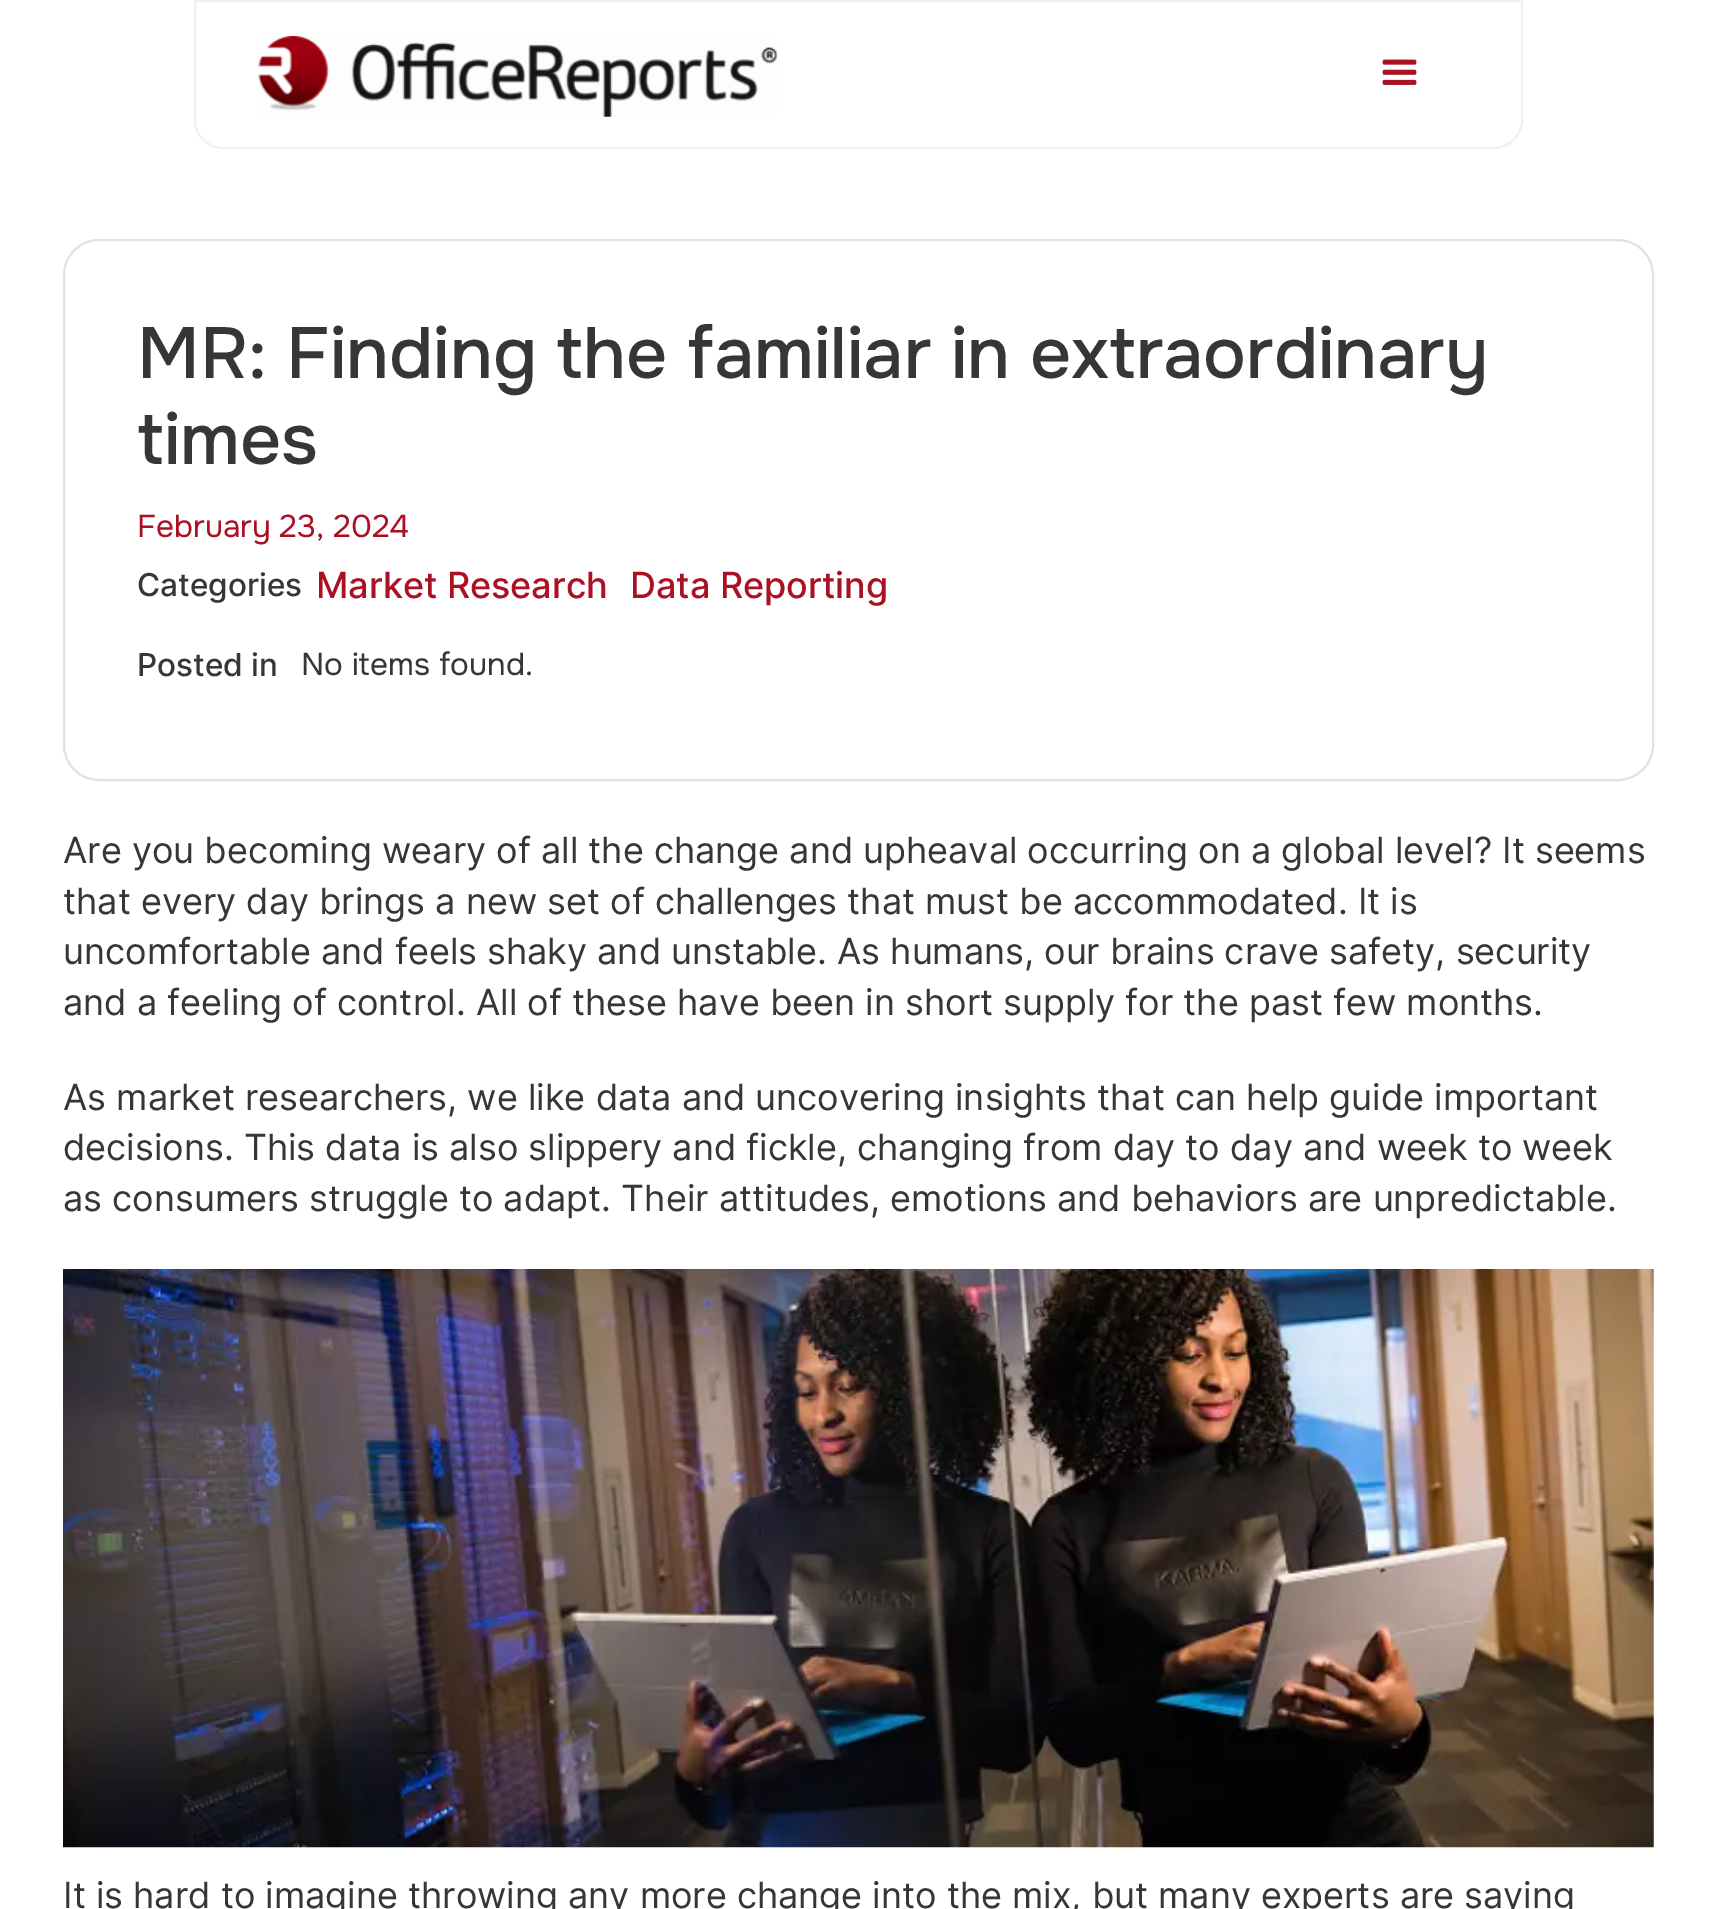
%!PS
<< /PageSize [1716 1909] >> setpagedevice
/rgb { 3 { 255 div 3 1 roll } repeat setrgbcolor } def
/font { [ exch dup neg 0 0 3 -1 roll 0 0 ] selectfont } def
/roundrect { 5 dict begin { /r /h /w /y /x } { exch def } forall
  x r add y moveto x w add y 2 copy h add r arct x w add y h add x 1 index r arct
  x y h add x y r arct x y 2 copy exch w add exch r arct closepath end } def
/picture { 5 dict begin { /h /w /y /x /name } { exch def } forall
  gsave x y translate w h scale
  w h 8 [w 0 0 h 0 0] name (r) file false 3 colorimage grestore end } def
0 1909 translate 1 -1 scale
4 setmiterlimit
255 255 255 rgb
0 0 1716 1909 rectfill
240 240 240 rgb
2 setlinewidth
195 1 moveto 1522 1 lineto 1522 120 lineto 1522 135.5 1509.5 148 1494 148 curveto 223 148 lineto 207.5 148 195 135.5 195 120 curveto closepath stroke
(img/1.rgb) 257 36 520 81 picture
(img/2.rgb) 1382 59 35 26 picture
227 227 222 rgb
64 240 1589 540 35 roundrect stroke
(img/3.rgb) 63 1269 1591 579 picture
/Onest-Medium 72 font
54 54 53 rgb
137 378 moveto (MR: Finding the familiar in extraordinary) show
137 464 moveto (times) show
/Onest-Regular 31.5 font
170 18 36 rgb
137 537 moveto (February 23, 2024) show
/Inter-Medium 31.5 font
54 54 53 rgb
137 596 moveto (Categories) show
/Inter-Medium 36 font
170 18 36 rgb
316 598 moveto (Market Research) show
630 598 moveto (Data Reporting) show
/Inter-Medium 31.5 font
54 54 53 rgb
137 676 moveto (Posted in) show
/Onest-Regular 31.5 font
301 675 moveto (No items found.) show
/Inter-Regular 36 font
[
  [(Are you becoming weary of all the change and upheaval occurring on a global level? It seems) 63 863]
  [(that every day brings a new set of challenges that must be accommodated. It is) 63 914]
  [(uncomfortable and feels shaky and unstable. As humans, our brains crave safety, security) 63 964]
  [(and a feeling of control. All of these have been in short supply for the past few months.) 63 1015]
  [(As market researchers, we like data and uncovering insights that can help guide important) 63 1110]
  [(decisions. This data is also slippery and fickle, changing from day to day and week to week) 63 1160]
  [(as consumers struggle to adapt. Their attitudes, emotions and behaviors are unpredictable.) 63 1211]
  [(It is hard to imagine throwing any more change into the mix, but many experts are saying) 63 1908]
] { aload pop moveto show } forall
showpage
